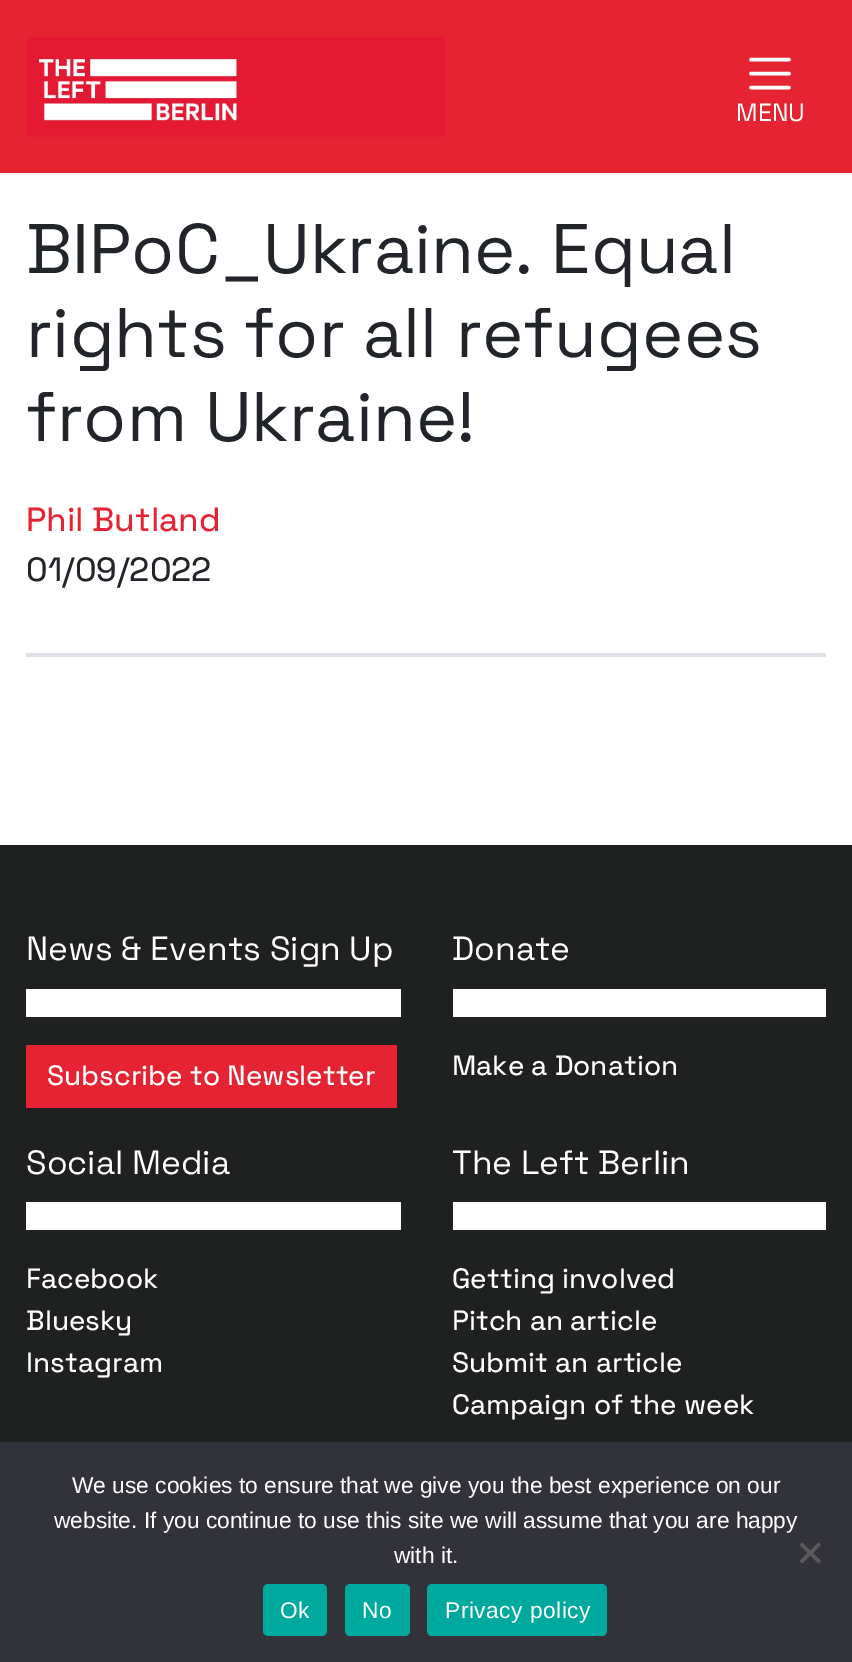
%!PS
<< /PageSize [852 1662] >> setpagedevice
/rgb { 3 { 255 div 3 1 roll } repeat setrgbcolor } def
/font { [ exch dup neg 0 0 3 -1 roll 0 0 ] selectfont } def
/roundrect { 5 dict begin { /r /h /w /y /x } { exch def } forall
  x r add y moveto x w add y 2 copy h add r arct x w add y h add x 1 index r arct
  x y h add x y r arct x y 2 copy exch w add exch r arct closepath end } def
/picture { 5 dict begin { /h /w /y /x /name } { exch def } forall
  gsave x y translate w h scale
  w h 8 [w 0 0 h 0 0] name (r) file false 3 colorimage grestore end } def
0 1662 translate 1 -1 scale
4 setmiterlimit
255 255 255 rgb
0 0 852 1662 rectfill
229 35 50 rgb
0 0 852 173 rectfill
(img/1.rgb) 26 37 420 100 picture
255 255 255 rgb
3.5 setlinewidth
1 setlinecap
751 59.5 moveto 789 59.5 lineto 751 73.5 moveto 789 73.5 lineto 751 87.5 moveto 789 87.5 lineto stroke
[
  [26 653 800 4 222 226 230]
  [0 845 852 597 31 33 33]
  [26 989 375 28 255 255 255]
  [26 1045 371 63 229 35 50]
  [453 989 373 28 255 255 255]
  [26 1202 375 28 255 255 255]
  [453 1202 373 28 255 255 255]
  [0 1442 852 220 50 50 58]
] { aload pop rgb rectfill } forall
89 89 93 rgb
818.5 1542.5 moveto 821 1545 lineto 802 1563.5 lineto 799.5 1561 lineto closepath fill
799.5 1545 moveto 802 1542.5 lineto 821 1561 lineto 818.5 1563.5 lineto closepath fill
0 169 157 rgb
263 1584 64 52 5 roundrect fill
345 1584 65 52 5 roundrect fill
427 1584 180 52 5 roundrect fill
/SpaceGrotesk-Regular 25 font
255 255 255 rgb
736 121 moveto (MENU) show
/SpaceGrotesk-Regular 70 font
33 37 41 rgb
[
  [(BIPoC_Ukraine. Equal) 26 273]
  [(rights for all refugees) 26 357]
  [(from Ukraine!) 26 441]
] { aload pop moveto show } forall
/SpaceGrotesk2-Regular 33.6 font
229 35 50 rgb
26 531 moveto (Phil Butland) show
33 37 41 rgb
26 581 moveto (01/09/2022) show
/SpaceGrotesk-Regular 33.6 font
255 255 255 rgb
26 960 moveto (News & Events Sign Up) show
/SpaceGrotesk2-Regular 28 font
47 1085 moveto (Subscribe to Newsletter) show
/SpaceGrotesk-Regular 33.6 font
452 960 moveto (Donate) show
/SpaceGrotesk2-Regular 28 font
452 1075 moveto (Make a Donation) show
/SpaceGrotesk-Regular 33.6 font
26 1174 moveto (Social Media) show
/SpaceGrotesk2-Regular 28 font
[
  [(Facebook) 26 1288]
  [(Bluesky) 26 1330]
  [(Instagram) 26 1372]
] { aload pop moveto show } forall
/SpaceGrotesk-Regular 33.6 font
452 1174 moveto (The Left Berlin) show
/SpaceGrotesk2-Regular 28 font
[
  [(Getting involved) 452 1288]
  [(Pitch an article) 452 1330]
  [(Submit an article) 452 1372]
  [(Campaign of the week) 452 1414]
] { aload pop moveto show } forall
/LiberationSans-Regular 22.75 font
[
  [(We use cookies to ensure that we give you the best experience on our) 72 1493]
  [(website. If you continue to use this site we will assume that you are happy) 54 1528]
  [(with it.) 394 1563]
] { aload pop moveto show } forall
280 1618 moveto 0.5 0 (Ok) ashow
362 1618 moveto 0.5 0 (No) ashow
445 1618 moveto 0.5 0 (Privacy policy) ashow
showpage
